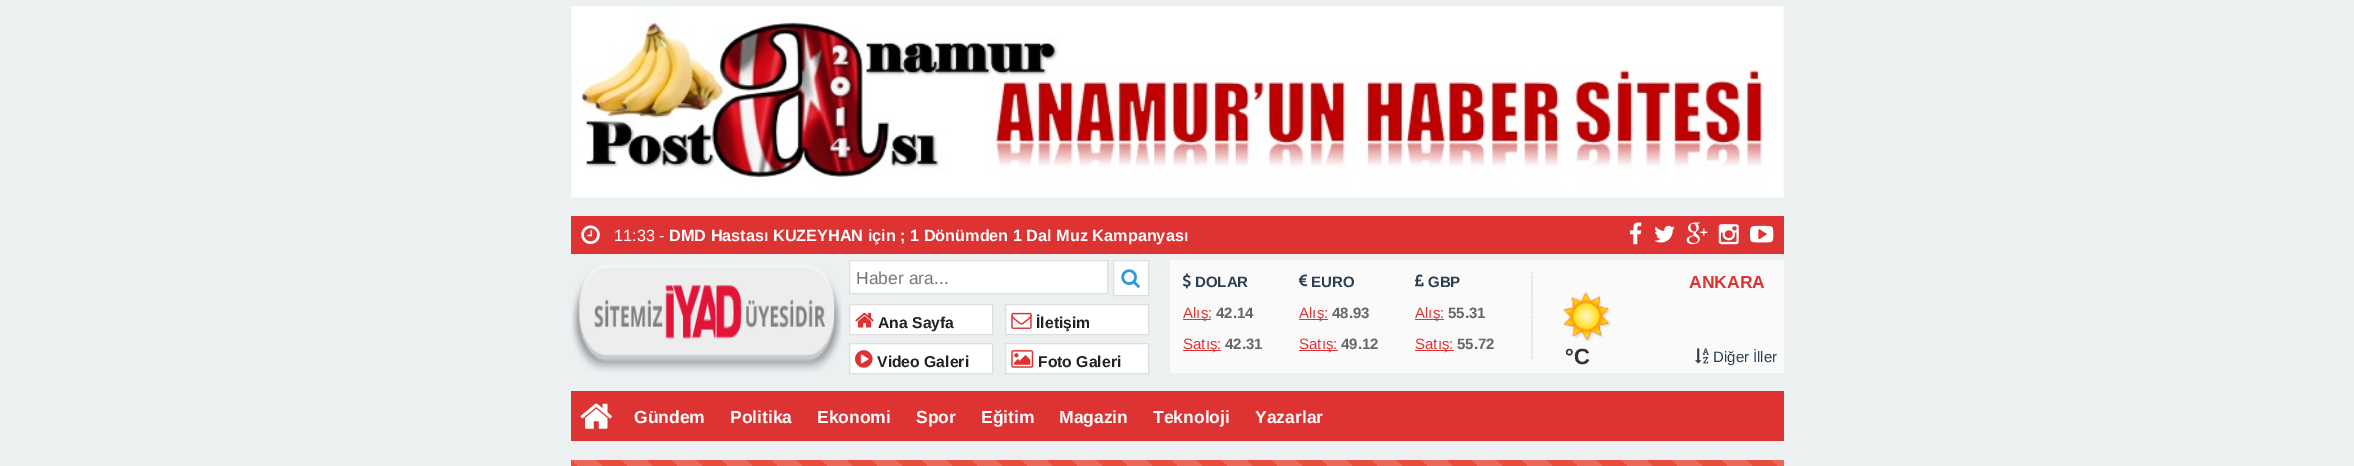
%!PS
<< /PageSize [2354 466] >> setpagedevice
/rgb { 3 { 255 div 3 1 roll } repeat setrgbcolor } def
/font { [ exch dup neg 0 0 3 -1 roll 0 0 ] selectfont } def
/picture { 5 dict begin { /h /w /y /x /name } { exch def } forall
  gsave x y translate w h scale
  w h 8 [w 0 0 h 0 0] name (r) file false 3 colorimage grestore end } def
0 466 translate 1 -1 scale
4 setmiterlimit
236 240 241 rgb
0 0 2354 466 rectfill
(img/1.rgb) 571 6 1213 192 picture
221 51 51 rgb
571 216 1213 38 rectfill
(img/2.rgb) 581 225 19 20 picture
(img/3.rgb) 1630 222 12 23 picture
(img/4.rgb) 1654 225 21 18 picture
(img/5.rgb) 1686 222 22 23 picture
(img/6.rgb) 1718 224 21 21 picture
(img/7.rgb) 1750 225 24 18 picture
(img/8.rgb) 571 264 271 108 picture
255 255 255 rgb
849.5 260.5 moveto 1107.5 260.5 lineto 1107.5 293.5 lineto 849.5 293.5 lineto closepath gsave fill grestore
222 222 222 rgb
stroke
255 255 255 rgb
1113.5 260.5 moveto 1148.5 260.5 lineto 1148.5 295.5 lineto 1113.5 295.5 lineto closepath gsave fill grestore
222 222 222 rgb
stroke
(img/9.rgb) 1121 269 19 19 picture
255 255 255 rgb
849.5 304.5 moveto 992.5 304.5 lineto 992.5 334.5 lineto 849.5 334.5 lineto closepath gsave fill grestore
222 222 222 rgb
stroke
(img/10.rgb) 855 312 19 16 picture
255 255 255 rgb
1005.5 304.5 moveto 1148.5 304.5 lineto 1148.5 334.5 lineto 1005.5 334.5 lineto closepath gsave fill grestore
222 222 222 rgb
stroke
(img/11.rgb) 1011 312 21 17 picture
255 255 255 rgb
849.5 343.5 moveto 992.5 343.5 lineto 992.5 373.5 lineto 849.5 373.5 lineto closepath gsave fill grestore
222 222 222 rgb
stroke
(img/12.rgb) 855 350 18 18 picture
255 255 255 rgb
1005.5 343.5 moveto 1148.5 343.5 lineto 1148.5 373.5 lineto 1005.5 373.5 lineto closepath gsave fill grestore
222 222 222 rgb
stroke
(img/13.rgb) 1011 350 23 18 picture
250 250 250 rgb
1170 260 614 113 rectfill
204 204 204 rgb
1.2 setlinewidth
[1.25 1.25] 0 setdash
1532 272.5 moveto 1532 360 lineto stroke
(img/14.rgb) 1183 273 8 16 picture
221 51 51 rgb
1183 319 28 1 rectfill
1183 350 38 1 rectfill
(img/15.rgb) 1299 274 9 13 picture
1299 319 29 1 rectfill
1299 350 39 1 rectfill
(img/16.rgb) 1415 274 9 13 picture
1415 319 29 1 rectfill
1415 350 39 1 rectfill
(img/17.rgb) 1563 292 48 50 picture
(img/18.rgb) 1695 348 14 16 picture
571 391 1213 50 rectfill
(img/19.rgb) 580 403 32 26 picture
231 76 60 rgb
571 460 1213 6 rectfill
(img/20.rgb) 572 460 1212 6 picture
/LiberationSans-Regular 16.25 font
255 255 255 rgb
614 241 moveto (11:33 -) show
/LiberationSans-Bold 16.25 font
669 241 moveto (DMD Hastası KUZEYHAN için ; 1 Dönümden 1 Dal Muz Kampanyası) show
/LiberationSans-Regular 17.5 font
119 119 119 rgb
856 284 moveto (Haber ara...) show
/LiberationSans-Bold 15.75 font
34 34 34 rgb
[
  [(Ana Sayfa) 878 328]
  [(İletişim) 1036 328]
  [(Video Galeri) 877 367]
  [(Foto Galeri) 1038 367]
] { aload pop moveto show } forall
/LiberationSans-Bold 15 font
44 62 80 rgb
1195 287 moveto (DOLAR) show
/LiberationSans-Regular 15 font
221 51 51 rgb
1183 318 moveto (Alış:) show
/LiberationSans-Bold 15 font
102 102 102 rgb
1216 318 moveto (42.14) show
/LiberationSans-Regular 15 font
221 51 51 rgb
1183 349 moveto (Satış:) show
/LiberationSans-Bold 15 font
102 102 102 rgb
1225 349 moveto (42.31) show
44 62 80 rgb
1311 287 moveto (EURO) show
/LiberationSans-Regular 15 font
221 51 51 rgb
1299 318 moveto (Alış:) show
/LiberationSans-Bold 15 font
102 102 102 rgb
1332 318 moveto (48.93) show
/LiberationSans-Regular 15 font
221 51 51 rgb
1299 349 moveto (Satış:) show
/LiberationSans-Bold 15 font
102 102 102 rgb
1341 349 moveto (49.12) show
44 62 80 rgb
1428 287 moveto (GBP) show
/LiberationSans-Regular 15 font
221 51 51 rgb
1415 318 moveto (Alış:) show
/LiberationSans-Bold 15 font
102 102 102 rgb
1448 318 moveto (55.31) show
/LiberationSans-Regular 15 font
221 51 51 rgb
1415 349 moveto (Satış:) show
/LiberationSans-Bold 15 font
102 102 102 rgb
1457 349 moveto (55.72) show
/LiberationSans-Bold 17.5 font
221 51 51 rgb
1689 288 moveto (ANKARA) show
/LiberationSans-Bold 22 font
51 51 51 rgb
1565 364 moveto (°C) show
/LiberationSans-Regular 15 font
44 62 80 rgb
1713 362 moveto (Diğer İller) show
/LiberationSans-Bold 17.5 font
255 255 255 rgb
[
  [(Gündem) 634 423]
  [(Politika) 730 423]
  [(Ekonomi) 817 423]
  [(Spor) 916 423]
  [(Eğitim) 981 423]
  [(Magazin) 1059 423]
  [(Teknoloji) 1153 423]
  [(Yazarlar) 1255 423]
] { aload pop moveto show } forall
showpage
